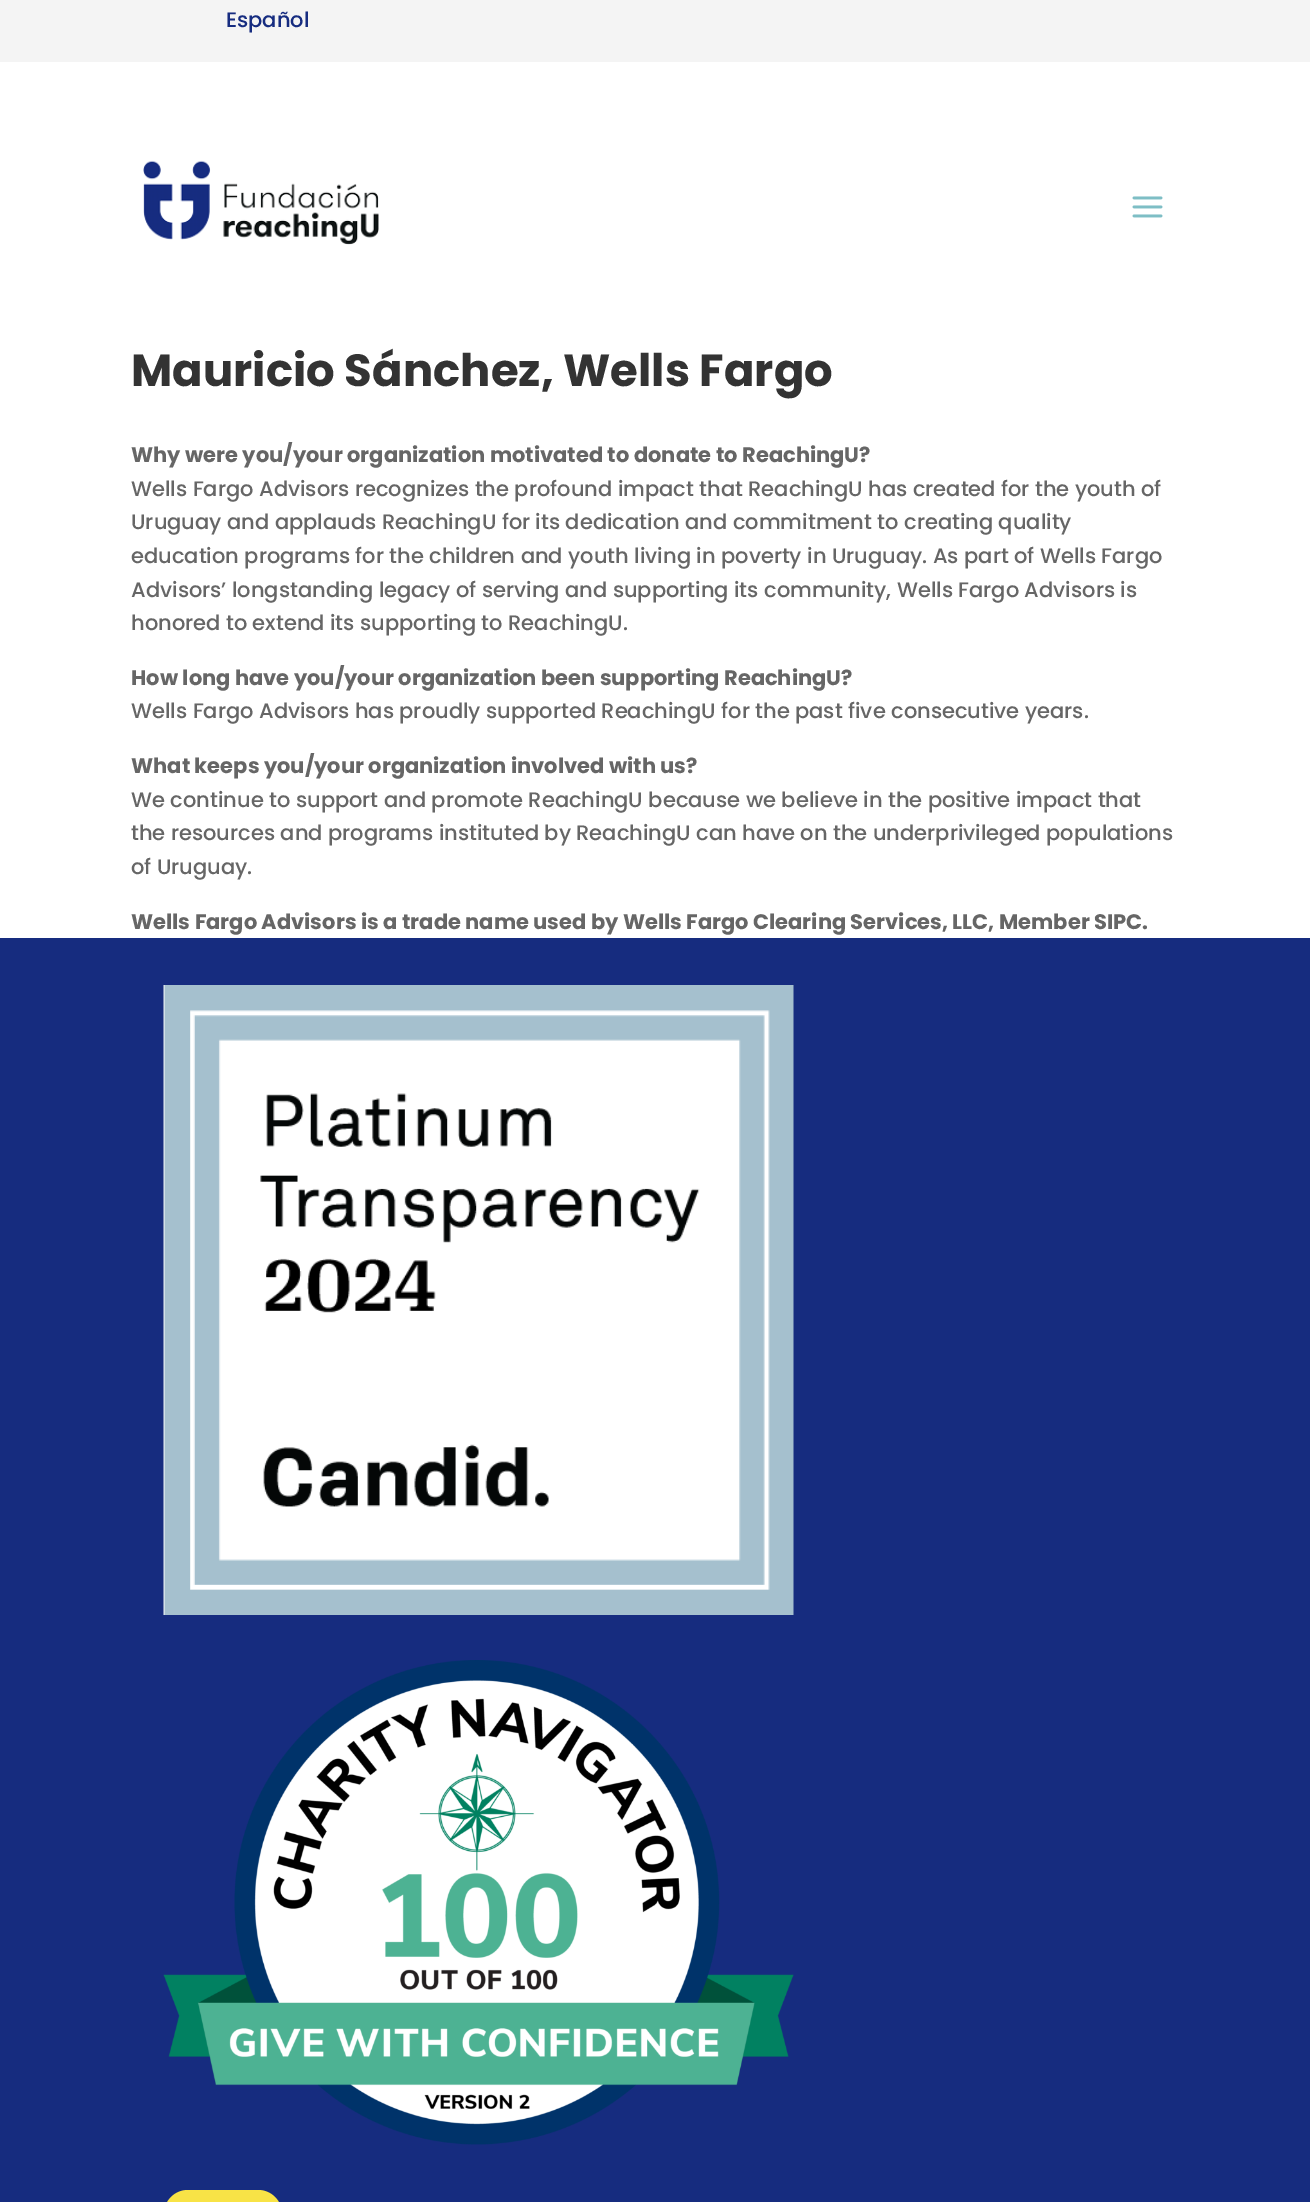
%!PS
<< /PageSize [1310 2202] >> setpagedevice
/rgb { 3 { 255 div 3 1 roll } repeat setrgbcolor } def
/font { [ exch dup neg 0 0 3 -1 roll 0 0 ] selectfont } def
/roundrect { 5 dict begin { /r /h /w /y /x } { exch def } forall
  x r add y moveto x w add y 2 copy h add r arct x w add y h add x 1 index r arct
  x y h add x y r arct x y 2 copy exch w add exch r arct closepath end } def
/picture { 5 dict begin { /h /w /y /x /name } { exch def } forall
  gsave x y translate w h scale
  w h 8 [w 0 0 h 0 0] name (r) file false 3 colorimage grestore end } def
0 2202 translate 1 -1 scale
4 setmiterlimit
255 255 255 rgb
0 0 1310 2202 rectfill
244 244 244 rgb
0 0 1310 62 rectfill
(img/1.rgb) 143 160 236 85 picture
(img/2.rgb) 1132 196 31 22 picture
22 44 127 rgb
0 938 1310 1264 rectfill
(img/3.rgb) 163 985 631 630 picture
(img/4.rgb) 163 1660 631 485 picture
248 227 70 rgb
164 2190 118 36 24 roundrect fill
/Poppins-Medium 21 font
22 44 128 rgb
226 27 moveto (Español) show
/Poppins-Bold 45 font
51 51 51 rgb
131 386 moveto (Mauricio Sánchez, Wells Fargo) show
/Poppins-Bold 21 font
102 102 102 rgb
131 462 moveto (Why were you/your organization motivated to donate to ReachingU?) show
/Poppins-Medium 21 font
[
  [(Wells Fargo Advisors recognizes the profound impact that ReachingU has created for the youth of) 131 496]
  [(Uruguay and applauds ReachingU for its dedication and commitment to creating quality) 131 529]
  [(education programs for the children and youth living in poverty in Uruguay. As part of Wells Fargo) 131 563]
  [(Advisors’ longstanding legacy of serving and supporting its community, Wells Fargo Advisors is) 131 597]
  [(honored to extend its supporting to ReachingU.) 131 630]
] { aload pop moveto show } forall
/Poppins-Bold 21 font
131 685 moveto (How long have you/your organization been supporting ReachingU?) show
/Poppins-Medium 21 font
131 718 moveto (Wells Fargo Advisors has proudly supported ReachingU for the past five consecutive years.) show
/Poppins-Bold 21 font
131 773 moveto (What keeps you/your organization involved with us?) show
/Poppins-Medium 21 font
[
  [(We continue to support and promote ReachingU because we believe in the positive impact that) 131 807]
  [(the resources and programs instituted by ReachingU can have on the underprivileged populations) 131 840]
  [(of Uruguay.) 131 874]
] { aload pop moveto show } forall
/Poppins-Bold 21 font
131 929 moveto (Wells Fargo Advisors is a trade name used by Wells Fargo Clearing Services, LLC, Member SIPC.) show
showpage
